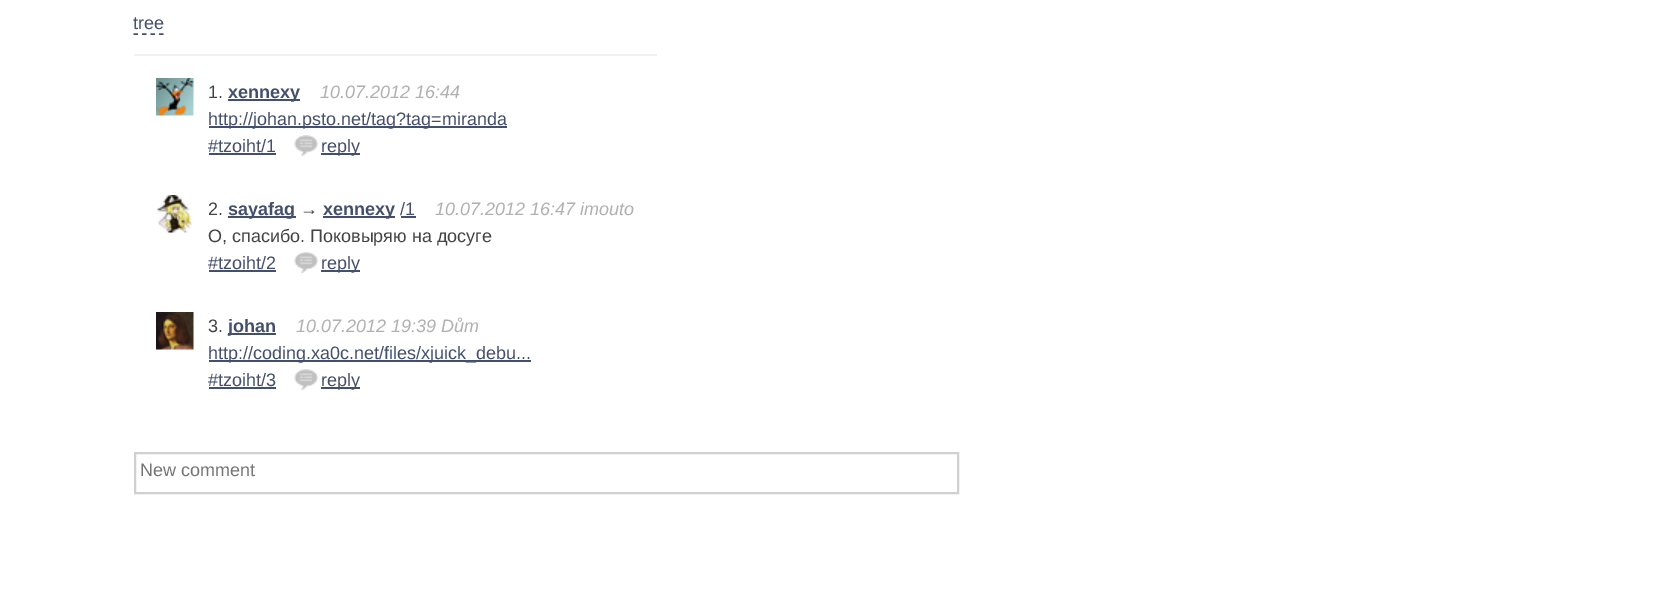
%!PS
<< /PageSize [1675 599] >> setpagedevice
/rgb { 3 { 255 div 3 1 roll } repeat setrgbcolor } def
/font { [ exch dup neg 0 0 3 -1 roll 0 0 ] selectfont } def
/picture { 5 dict begin { /h /w /y /x /name } { exch def } forall
  gsave x y translate w h scale
  w h 8 [w 0 0 h 0 0] name (r) file false 3 colorimage grestore end } def
0 599 translate 1 -1 scale
4 setmiterlimit
255 255 255 rgb
0 0 1675 599 rectfill
68 79 108 rgb
1.5 setlinewidth
[4.5 4] 0 setdash
133.5 34 moveto 163.5 34 lineto stroke
240 240 240 rgb
134 54 523 2 rectfill
(img/1.rgb) 156 78 38 38 picture
[
  [228 99 72 2 68 79 108]
  [209 126 298 2 68 79 108]
  [209 153 67 2 68 79 108]
] { aload pop rgb rectfill } forall
(img/2.rgb) 294 135 24 21 picture
321 153 39 2 rectfill
(img/3.rgb) 157 195 36 38 picture
[
  [228 216 68 2 68 79 108]
  [323 216 72 2 68 79 108]
  [401 216 15 2 68 79 108]
  [209 270 67 2 68 79 108]
] { aload pop rgb rectfill } forall
(img/2.rgb) 294 252 24 21 picture
321 270 39 2 rectfill
(img/4.rgb) 156 312 38 38 picture
[
  [228 333 48 2 68 79 108]
  [209 360 322 2 68 79 108]
  [209 387 67 2 68 79 108]
] { aload pop rgb rectfill } forall
(img/2.rgb) 294 369 24 21 picture
321 387 39 2 rectfill
208 208 208 rgb
2 setlinewidth
[] 0 setdash
135 453 823 40 rectstroke
/LiberationSans-Regular 18 font
68 79 108 rgb
133 29 moveto (tree) show
68 68 68 rgb
208 98 moveto (1.) show
/LiberationSans-Bold 18 font
68 79 108 rgb
228 98 moveto (xennexy) show
/LiberationSans-Italic 18 font
176 176 176 rgb
320 98 moveto (10.07.2012 16:44) show
/LiberationSans-Regular 18 font
68 79 108 rgb
[
  [(http://johan.psto.net/tag?tag=miranda) 208 125]
  [(#tzoiht/1) 208 152]
  [(reply) 321 152]
] { aload pop moveto show } forall
68 68 68 rgb
208 215 moveto (2.) show
/LiberationSans-Bold 18 font
68 79 108 rgb
228 215 moveto (sayafag) show
/LiberationSans-Regular 18 font
68 68 68 rgb
300 215 moveto (→) show
/LiberationSans-Bold 18 font
68 79 108 rgb
323 215 moveto (xennexy) show
/LiberationSans-Regular 18 font
400 215 moveto (/1) show
/LiberationSans-Italic 18 font
176 176 176 rgb
435 215 moveto (10.07.2012 16:47 imouto) show
/LiberationSans-Regular 18 font
68 68 68 rgb
208 242 moveto (О, спасибо. Поковыряю на досуге) show
68 79 108 rgb
208 269 moveto (#tzoiht/2) show
321 269 moveto (reply) show
68 68 68 rgb
208 332 moveto (3.) show
/LiberationSans-Bold 18 font
68 79 108 rgb
228 332 moveto (johan) show
/LiberationSans-Italic 18 font
176 176 176 rgb
296 332 moveto (10.07.2012 19:39 Dům) show
/LiberationSans-Regular 18 font
68 79 108 rgb
[
  [(http://coding.xa0c.net/files/xjuick_debu...) 208 359]
  [(#tzoiht/3) 208 386]
  [(reply) 321 386]
] { aload pop moveto show } forall
117 117 117 rgb
140 476 moveto (New comment) show
showpage
